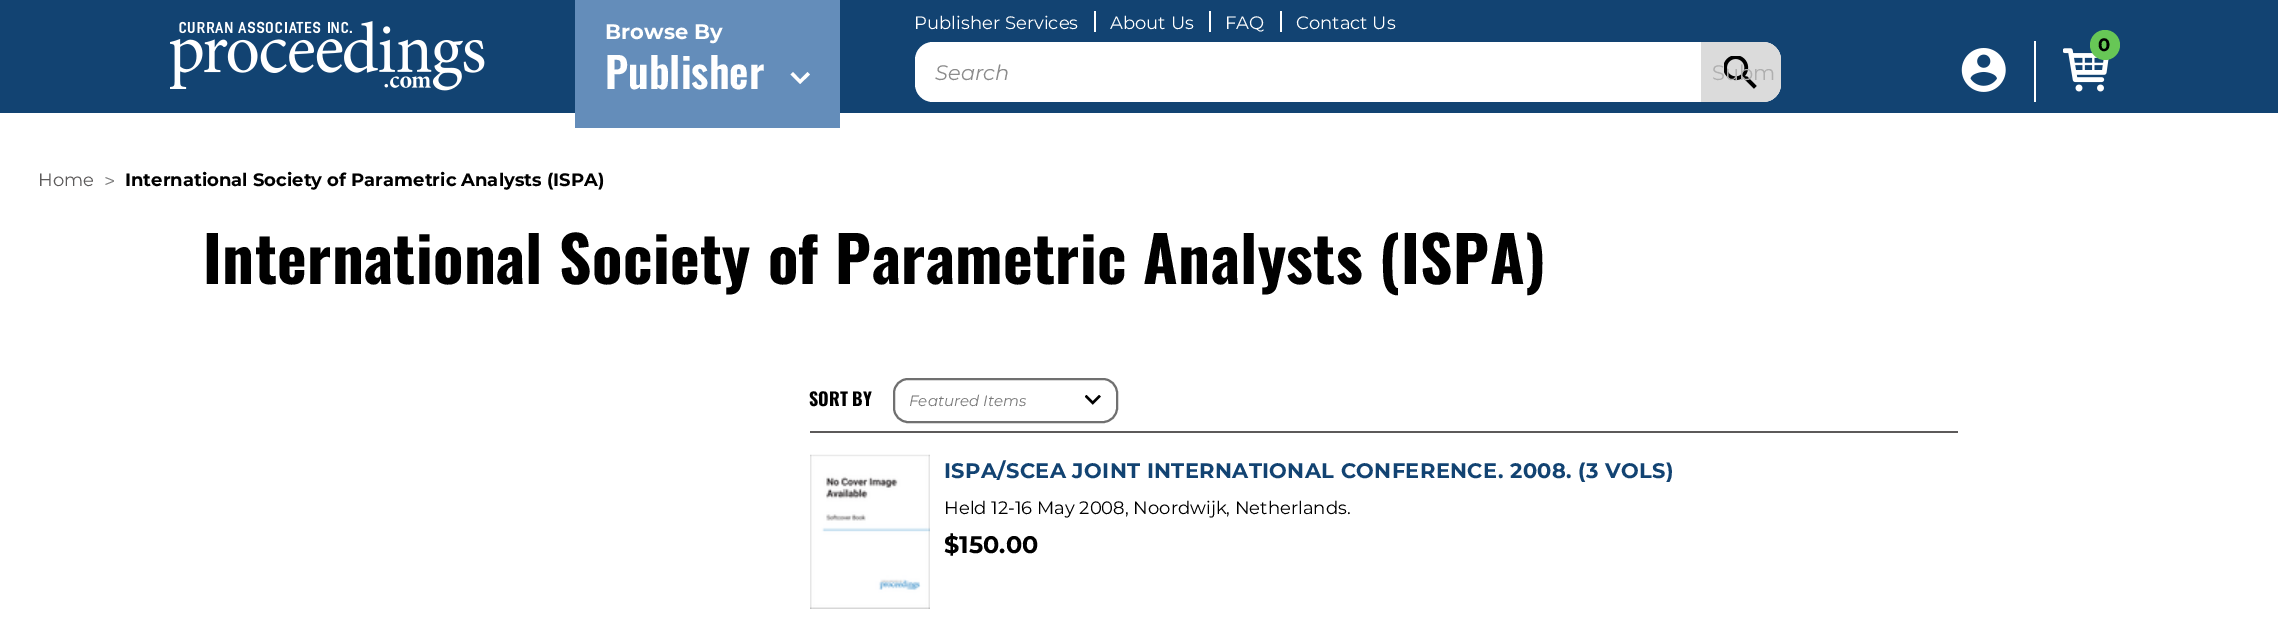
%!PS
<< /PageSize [2278 621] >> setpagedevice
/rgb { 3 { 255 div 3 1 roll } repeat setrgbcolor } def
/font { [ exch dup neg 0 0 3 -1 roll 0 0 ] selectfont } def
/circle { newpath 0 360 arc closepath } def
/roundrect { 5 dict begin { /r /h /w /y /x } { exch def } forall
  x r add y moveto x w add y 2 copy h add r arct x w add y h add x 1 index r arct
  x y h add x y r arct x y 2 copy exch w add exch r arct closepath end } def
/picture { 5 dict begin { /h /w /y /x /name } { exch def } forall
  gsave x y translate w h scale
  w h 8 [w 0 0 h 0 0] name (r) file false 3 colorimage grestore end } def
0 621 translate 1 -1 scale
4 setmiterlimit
255 255 255 rgb
0 0 2278 621 rectfill
18 67 114 rgb
0 0 2278 113 rectfill
(img/1.rgb) 170 21 315 70 picture
100 141 186 rgb
575 0 265 128 rectfill
255 255 255 rgb
807.5 72 moveto 800 79.5 lineto 793 72 lineto 790.5 74.5 lineto 800 84 lineto 810 74.5 lineto closepath fill
[
  [1094 11 2 21 255 255 255]
  [1209 11 2 21 255 255 255]
  [1280 11 2 21 255 255 255]
] { aload pop rgb rectfill } forall
915 42 866 60 18 roundrect fill
219 219 219 rgb
1701 42 moveto 1763 42 lineto 1773 42 1781 50 1781 60 curveto 1781 84 lineto 1781 94 1773 102 1763 102 curveto 1701 102 lineto closepath fill
(img/2.rgb) 1724 56 33 33 picture
255 255 255 rgb
2034 41 2 61 rectfill
(img/3.rgb) 2063 48 46 44 picture
103 199 86 rgb
2105 45 15 circle fill
(img/4.rgb) 1961 48 45 44 picture
(img/5.rgb) 1085 395 16 10 picture
112 112 112 rgb
2 setlinewidth
894 379 223 43 14 roundrect stroke
92 90 90 rgb
810 431 1148 2 rectfill
(img/6.rgb) 810 454 120 155 picture
/Montserrat-Bold 21 font
255 255 255 rgb
605 39 moveto (Browse By) show
/Oswald-SemiBold 42 font
605 89 moveto (Publisher) show
/Montserrat-Regular 18 font
[
  [(Publisher Services) 914 29]
  [(About Us) 1110 29]
  [(FAQ) 1225 29]
  [(Contact Us) 1296 29]
] { aload pop moveto show } forall
/Montserrat-Italic 21 font
139 139 139 rgb
935 80 moveto (Search) show
/Montserrat-Regular 21 font
175 175 175 rgb
1712 80 moveto (Subm) show
/Montserrat-Bold 18 font
0 0 0 rgb
2098 51 moveto (0) show
/Montserrat-Regular 18 font
92 90 90 rgb
38 186 moveto (Home) show
/Montserrat-Regular 20 font
121 121 121 rgb
104 188 moveto (>) show
/Montserrat-Bold 18 font
0 0 0 rgb
125 186 moveto (International Society of Parametric Analysts \(ISPA\)) show
/Oswald-Bold 63 font
203 284 moveto 0.38 0 (International Society of Parametric Analysts \(ISPA\)) ashow
/Oswald-Bold 18 font
809 406 moveto (SORT BY) show
/Montserrat-Italic 15 font
121 121 121 rgb
909 406 moveto (Featured Items) show
/Montserrat-Bold 21 font
18 67 114 rgb
944 478 moveto 0.38 0 (ISPA/SCEA JOINT INTERNATIONAL CONFERENCE. 2008. \(3 VOLS\)) ashow
/Montserrat-Regular 18 font
0 0 0 rgb
944 514 moveto (Held 12-16 May 2008, Noordwijk, Netherlands.) show
/Montserrat-Bold 24 font
944 553 moveto ($150.00) show
showpage
